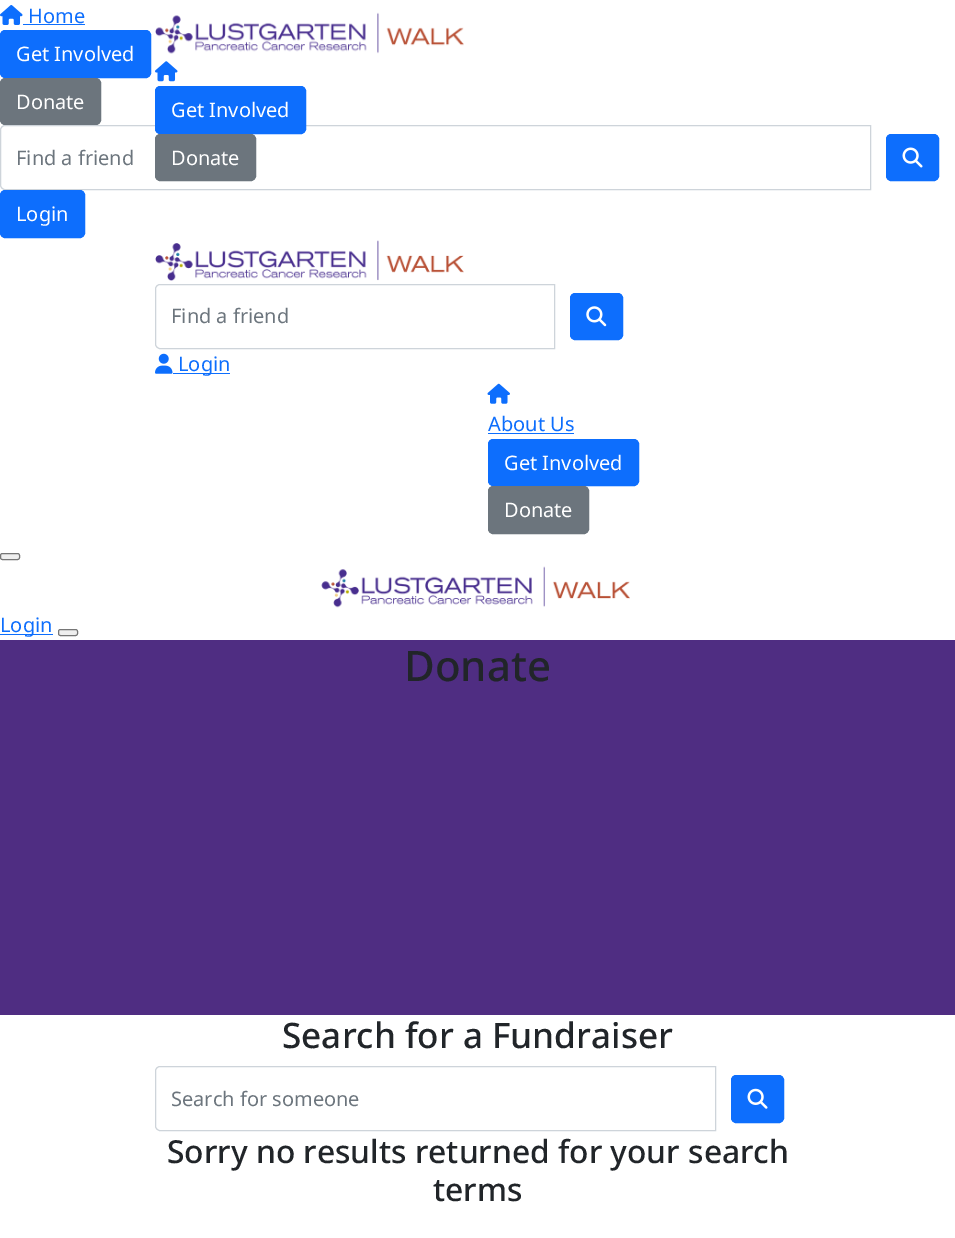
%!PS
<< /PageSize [955 1238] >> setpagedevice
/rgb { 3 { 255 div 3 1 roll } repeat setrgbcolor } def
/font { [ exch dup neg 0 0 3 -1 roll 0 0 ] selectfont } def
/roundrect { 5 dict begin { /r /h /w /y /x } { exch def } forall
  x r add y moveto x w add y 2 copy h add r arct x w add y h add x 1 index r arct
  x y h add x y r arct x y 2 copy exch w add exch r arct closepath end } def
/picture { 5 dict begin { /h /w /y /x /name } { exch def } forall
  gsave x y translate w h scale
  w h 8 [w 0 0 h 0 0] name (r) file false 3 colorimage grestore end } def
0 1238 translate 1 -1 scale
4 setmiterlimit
255 255 255 rgb
0 0 955 1238 rectfill
(img/1.rgb) 0 5 23 20 picture
13 110 253 rgb
23 24 62 1 rectfill
0.5 30.5 150 47 4.5 roundrect gsave fill grestore
stroke
108 117 125 rgb
0.5 78.5 100 46 4.5 roundrect gsave fill grestore
stroke
206 212 218 rgb
5 125.5 moveto 870.5 125.5 lineto 870.5 189.5 lineto 5 189.5 lineto 2.5 189.5 0.5 187.5 0.5 185 curveto 0.5 130 lineto 0.5 127.5 2.5 125.5 5 125.5 curveto closepath stroke
13 110 253 rgb
886.5 134.5 52 46 4.5 roundrect gsave fill grestore
stroke
(img/2.rgb) 902 147 21 21 picture
(img/3.rgb) 155 12 309 42 picture
(img/4.rgb) 155 61 23 21 picture
155.5 86.5 150 47 4.5 roundrect gsave fill grestore
stroke
108 117 125 rgb
155.5 134.5 100 46 4.5 roundrect gsave fill grestore
stroke
(img/5.rgb) 155 240 309 41 picture
206 212 218 rgb
160 284.5 moveto 554.5 284.5 lineto 554.5 348.5 lineto 160 348.5 lineto 157.5 348.5 155.5 346.5 155.5 344 curveto 155.5 289 lineto 155.5 286.5 157.5 284.5 160 284.5 curveto closepath stroke
13 110 253 rgb
570.5 293.5 52 46 4.5 roundrect gsave fill grestore
stroke
(img/6.rgb) 586 306 21 21 picture
(img/7.rgb) 155 353 18 21 picture
173 373 57 1 rectfill
(img/8.rgb) 487 383 23 21 picture
488 433 86 1 rectfill
488.5 439.5 150 46 4.5 roundrect gsave fill grestore
stroke
108 117 125 rgb
488.5 486.5 100 47 4.5 roundrect gsave fill grestore
stroke
239 239 239 rgb
0.5 553.5 19 6 2 roundrect gsave fill grestore
118 118 118 rgb
stroke
(img/9.rgb) 321 566 309 42 picture
13 110 253 rgb
0 634 53 1 rectfill
239 239 239 rgb
58.5 629.5 19 6 2 roundrect gsave fill grestore
118 118 118 rgb
stroke
79 45 130 rgb
0 640 955 375 rectfill
13 110 253 rgb
0.5 190.5 84 47 4.5 roundrect gsave fill grestore
stroke
206 212 218 rgb
160 1066.5 moveto 715.5 1066.5 lineto 715.5 1130.5 lineto 160 1130.5 lineto 157.5 1130.5 155.5 1128.5 155.5 1126 curveto 155.5 1071 lineto 155.5 1068.5 157.5 1066.5 160 1066.5 curveto closepath stroke
13 110 253 rgb
731.5 1075.5 52 47 4.5 roundrect gsave fill grestore
stroke
(img/10.rgb) 747 1088 21 21 picture
/NotoSans-Regular 20 font
28 23 moveto (Home) show
255 255 255 rgb
16 61 moveto (Get Involved) show
16 109 moveto (Donate) show
108 117 125 rgb
16 165 moveto (Find a friend) show
255 255 255 rgb
171 117 moveto (Get Involved) show
171 165 moveto (Donate) show
108 117 125 rgb
171 323 moveto (Find a friend) show
13 110 253 rgb
178 371 moveto (Login) show
488 431 moveto (About Us) show
255 255 255 rgb
504 470 moveto (Get Involved) show
504 517 moveto (Donate) show
13 110 253 rgb
0 632 moveto (Login) show
/NotoSans-Medium 42 font
33 37 41 rgb
404 681 moveto (Donate) show
/NotoSans-Regular 20 font
255 255 255 rgb
16 221 moveto (Login) show
/NotoSans-Medium 35.1 font
33 37 41 rgb
282 1048 moveto (Search for a Fundraiser) show
/NotoSans-Regular 20 font
108 117 125 rgb
171 1106 moveto (Search for someone) show
/NotoSans-Medium 31.75 font
33 37 41 rgb
167 1163 moveto (Sorry no results returned for your search) show
433 1201 moveto (terms) show
showpage
